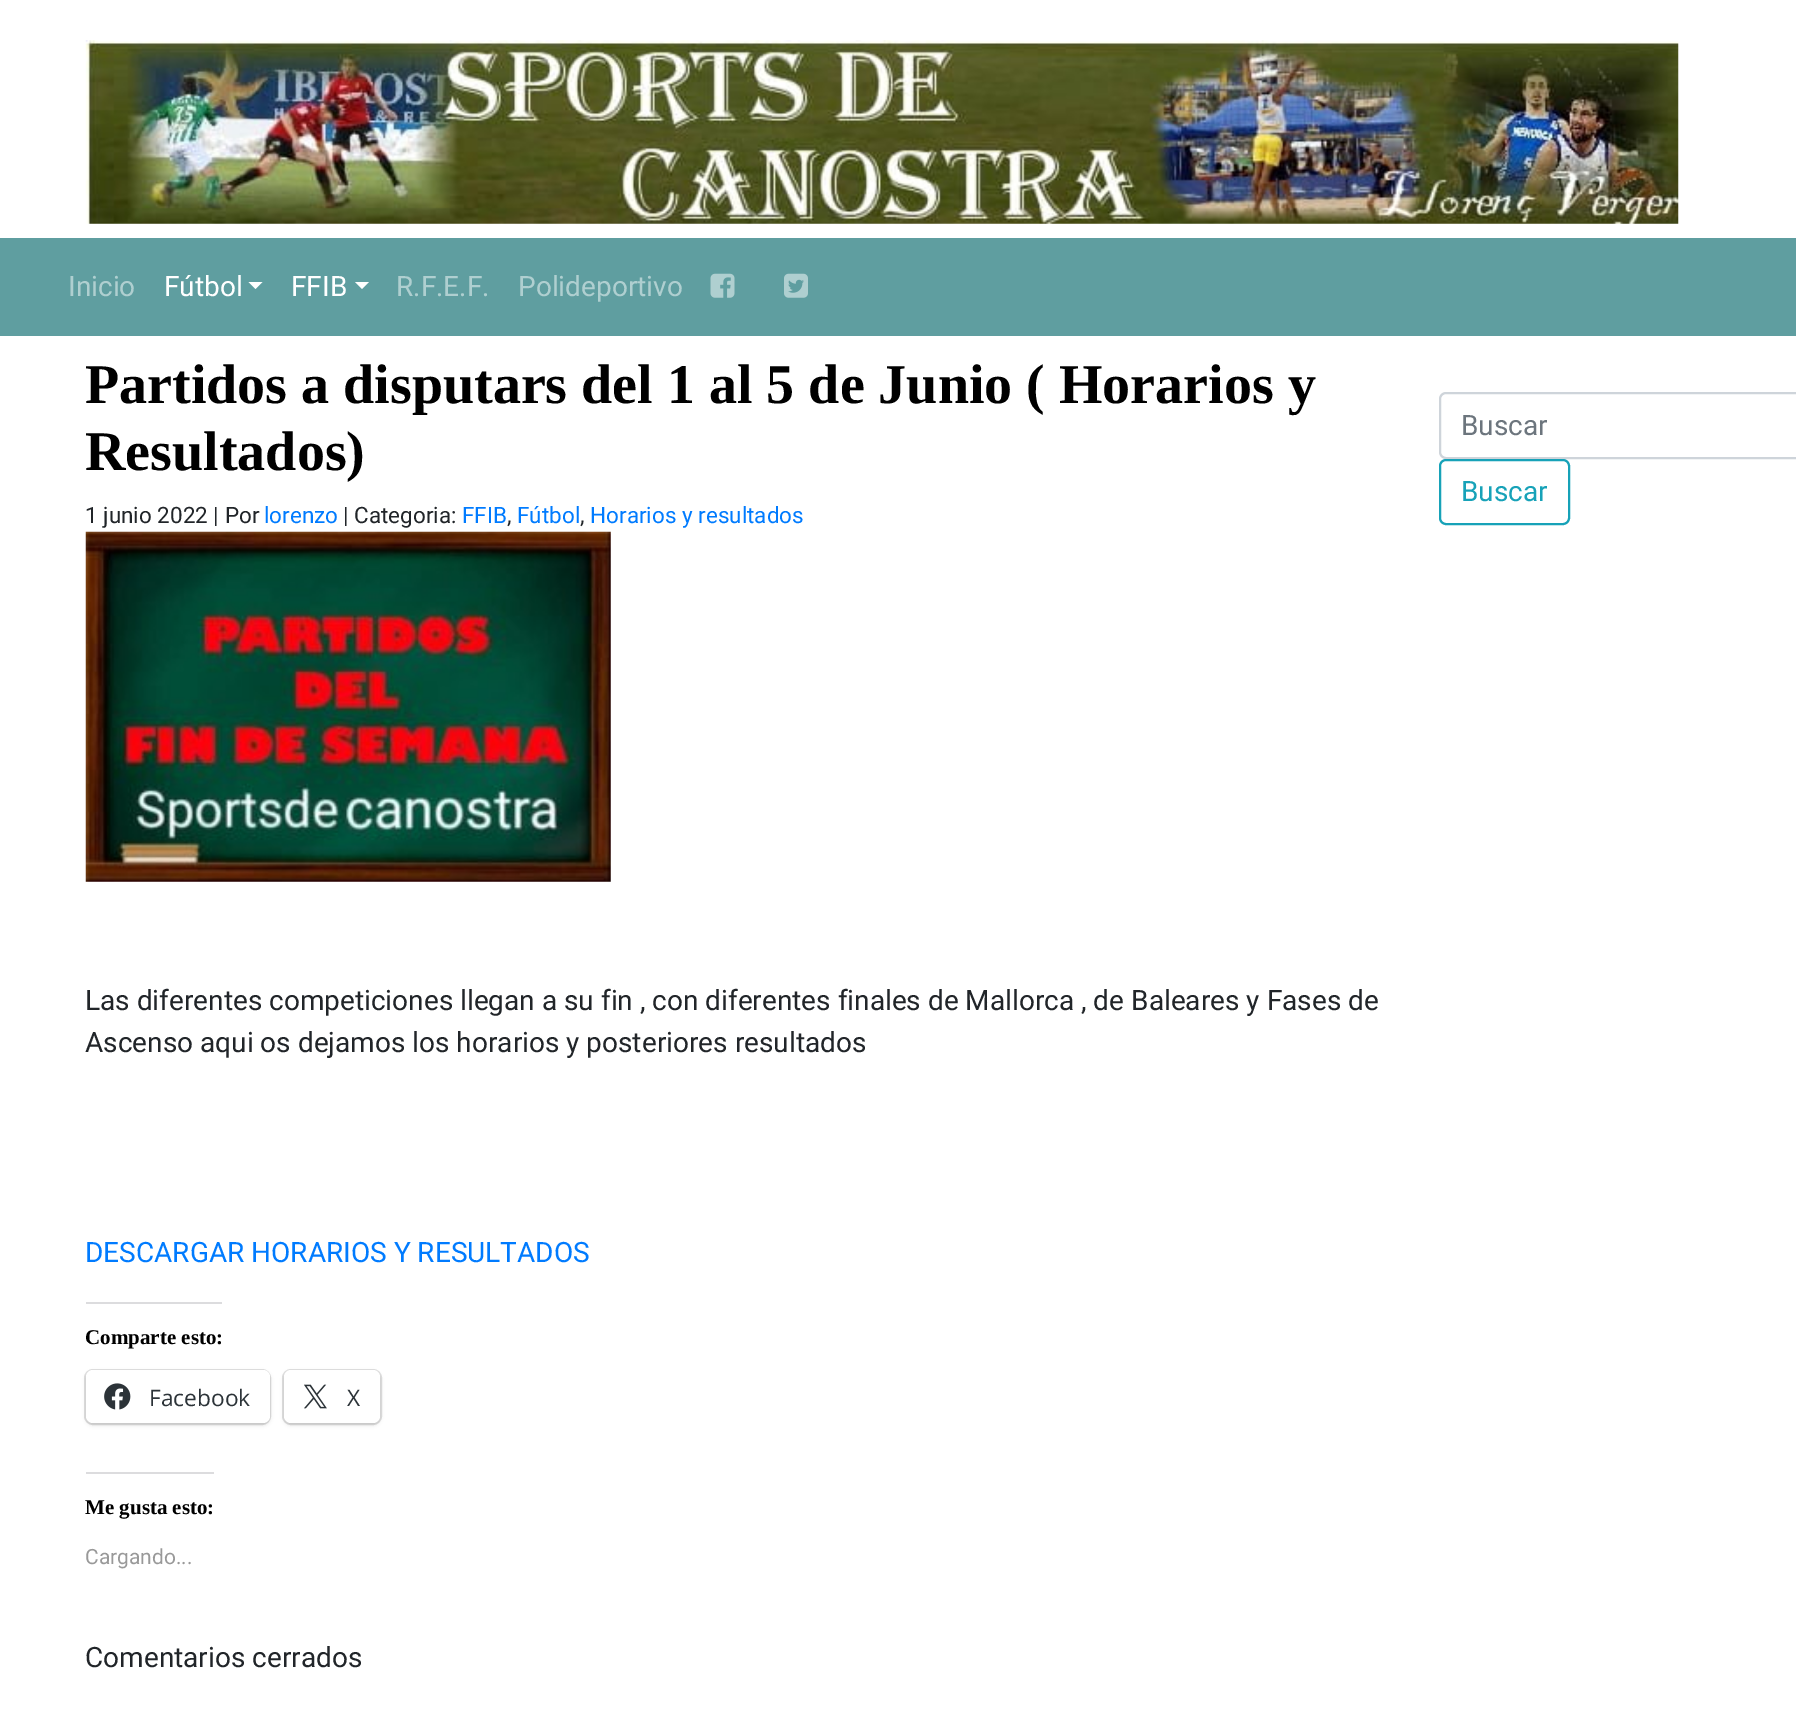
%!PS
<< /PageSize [1796 1727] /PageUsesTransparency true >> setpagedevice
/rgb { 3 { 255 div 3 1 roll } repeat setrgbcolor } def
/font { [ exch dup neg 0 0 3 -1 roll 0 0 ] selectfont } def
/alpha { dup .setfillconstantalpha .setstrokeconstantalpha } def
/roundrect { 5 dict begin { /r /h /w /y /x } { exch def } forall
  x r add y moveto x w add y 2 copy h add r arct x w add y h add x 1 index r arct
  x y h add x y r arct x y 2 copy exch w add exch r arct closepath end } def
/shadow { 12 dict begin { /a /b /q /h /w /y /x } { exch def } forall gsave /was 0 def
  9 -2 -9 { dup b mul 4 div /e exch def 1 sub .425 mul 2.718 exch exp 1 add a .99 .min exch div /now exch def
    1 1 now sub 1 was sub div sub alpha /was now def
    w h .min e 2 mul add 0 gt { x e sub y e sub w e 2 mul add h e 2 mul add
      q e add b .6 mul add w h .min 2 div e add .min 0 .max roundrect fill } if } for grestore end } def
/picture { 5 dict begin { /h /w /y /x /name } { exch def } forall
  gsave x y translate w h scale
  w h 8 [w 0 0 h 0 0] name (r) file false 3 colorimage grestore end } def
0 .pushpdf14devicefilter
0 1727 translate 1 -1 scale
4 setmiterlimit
255 255 255 rgb
0 0 1796 1727 rectfill
(img/1.rgb) 85 40 1594 184 picture
95 158 160 rgb
0 238 1796 98 rectfill
255 255 255 rgb
248.5 282 moveto 262.5 282 lineto 255.5 289 lineto closepath fill
355 282 moveto 369 282 lineto 362 289 lineto closepath fill
(img/2.rgb) 710 273 25 25 picture
(img/3.rgb) 784 273 24 25 picture
(img/4.rgb) 85 531 526 351 picture
220 220 222 rgb
86 1302 136 2 rectfill
224 224 224 rgb
2 setlinewidth
85 1370 185 54 8 roundrect stroke
0 0 0 rgb
86 1372 184 53 7 2 0.12 shadow
255 255 255 rgb
86 1370 184 53 7 roundrect fill
(img/5.rgb) 104 1383 27 27 picture
224 224 224 rgb
283 1370 98 54 8 roundrect stroke
0 0 0 rgb
284 1372 96 53 7 2 0.12 shadow
255 255 255 rgb
284 1370 96 53 7 roundrect fill
(img/6.rgb) 304 1384 23 25 picture
220 220 222 rgb
86 1472 128 2 rectfill
206 212 218 rgb
1440 393 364 65 6 roundrect stroke
23 162 184 rgb
1440 460 129 64 6 roundrect stroke
/Roboto-Regular 28 font
175 207 208 rgb
68 296 moveto (Inicio) show
255 255 255 rgb
164 296 moveto (Fútbol) show
291 296 moveto (FFIB) show
175 207 208 rgb
396 296 moveto (R.F.E.F.) show
518 296 moveto (Polideportivo) show
/LiberationSerif-Bold 56 font
0 0 0 rgb
85 403 moveto (Partidos a disputars del 1 al 5 de Junio \( Horarios y) show
85 470 moveto (Resultados\)) show
/Roboto-Regular 22.5 font
33 37 41 rgb
85 523 moveto (1 junio 2022 | Por) show
0 123 255 rgb
264 523 moveto (lorenzo) show
33 37 41 rgb
343 523 moveto (| Categoria:) show
0 123 255 rgb
462 523 moveto (FFIB) show
33 37 41 rgb
507 523 moveto (,) show
0 123 255 rgb
517 523 moveto (Fútbol) show
33 37 41 rgb
580 523 moveto (,) show
0 123 255 rgb
590 523 moveto (Horarios y resultados) show
/Roboto-Regular 28 font
33 37 41 rgb
85 1010 moveto (Las diferentes competiciones llegan a su fin , con diferentes finales de Mallorca , de Baleares y Fases de) show
85 1052 moveto (Ascenso aqui os dejamos los horarios y posteriores resultados) show
0 123 255 rgb
85 1262 moveto (DESCARGAR HORARIOS Y RESULTADOS) show
/LiberationSerif-Bold 21 font
0 0 0 rgb
85 1344 moveto (Comparte esto:) show
/OpenSans-Regular 22.75 font
44 51 56 rgb
149 1406 moveto (Facebook) show
347 1406 moveto (X) show
/LiberationSerif-Bold 21 font
0 0 0 rgb
85 1514 moveto (Me gusta esto:) show
/Roboto-Regular 21 font
153 153 153 rgb
85 1564 moveto (Cargando...) show
/Roboto-Regular 28 font
33 37 41 rgb
85 1667 moveto (Comentarios cerrados) show
108 117 125 rgb
1461 435 moveto (Buscar) show
23 162 184 rgb
1461 501 moveto (Buscar) show
.poppdf14devicefilter showpage
